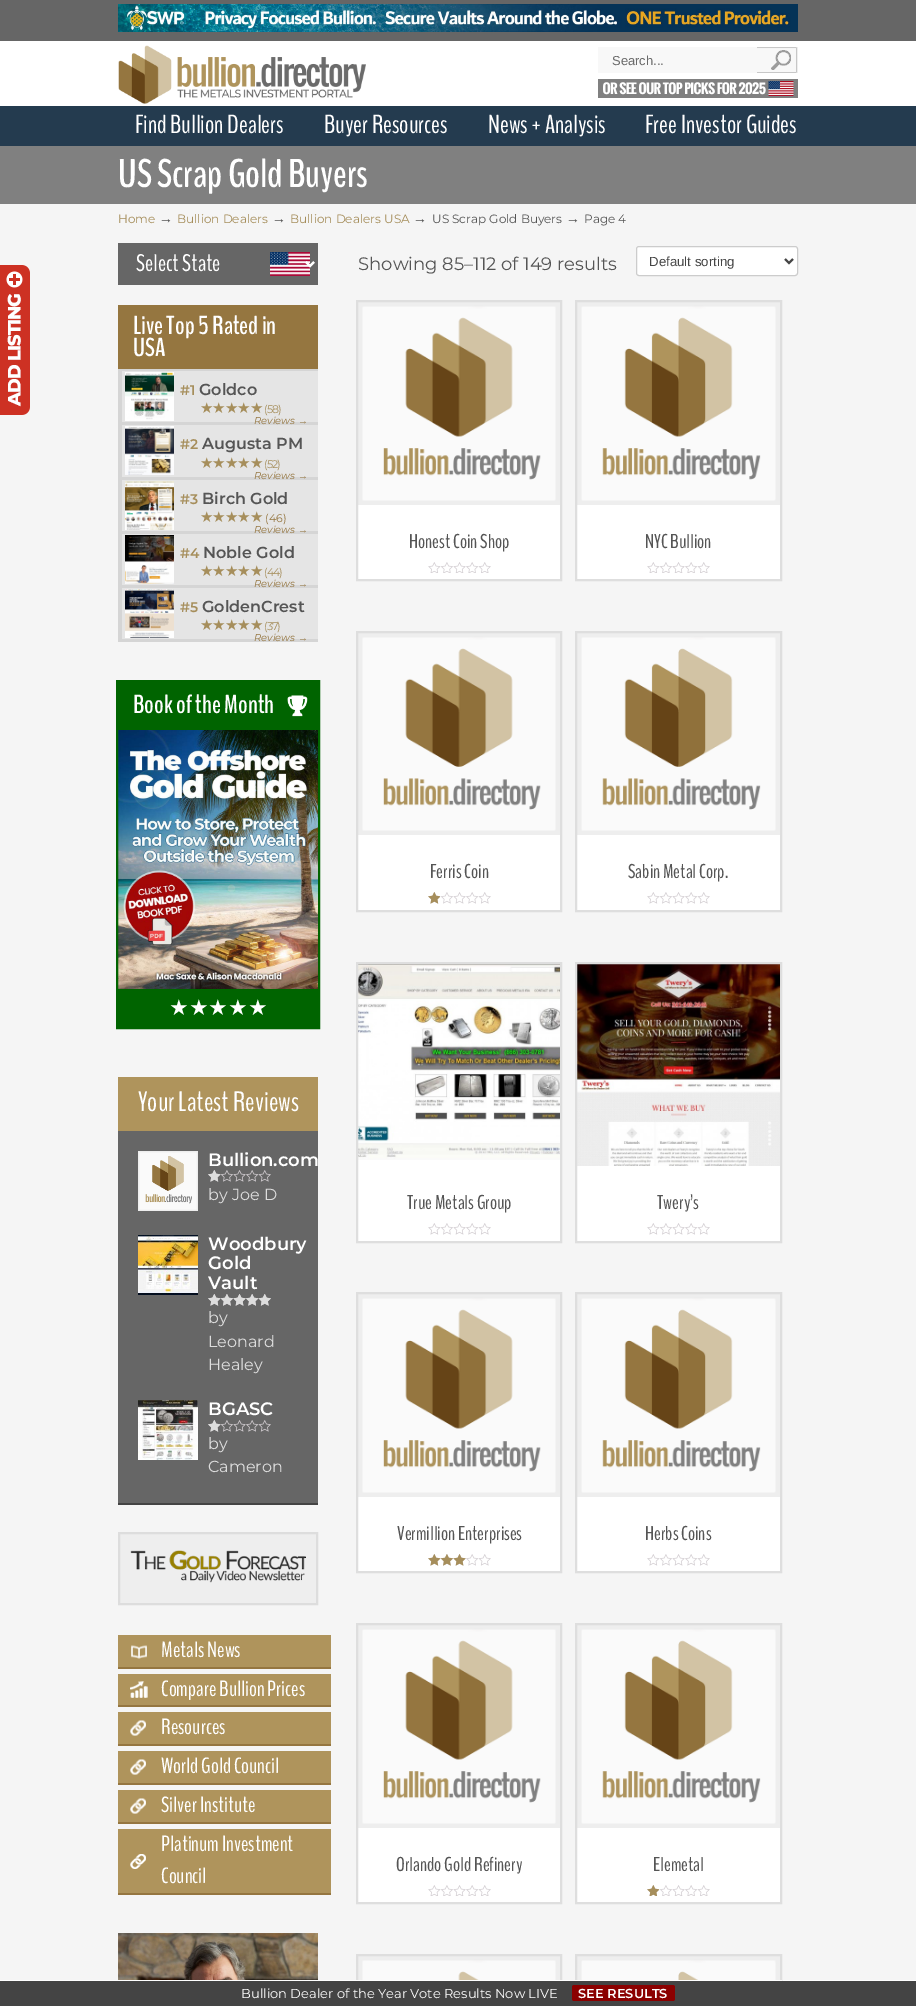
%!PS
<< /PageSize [916 2006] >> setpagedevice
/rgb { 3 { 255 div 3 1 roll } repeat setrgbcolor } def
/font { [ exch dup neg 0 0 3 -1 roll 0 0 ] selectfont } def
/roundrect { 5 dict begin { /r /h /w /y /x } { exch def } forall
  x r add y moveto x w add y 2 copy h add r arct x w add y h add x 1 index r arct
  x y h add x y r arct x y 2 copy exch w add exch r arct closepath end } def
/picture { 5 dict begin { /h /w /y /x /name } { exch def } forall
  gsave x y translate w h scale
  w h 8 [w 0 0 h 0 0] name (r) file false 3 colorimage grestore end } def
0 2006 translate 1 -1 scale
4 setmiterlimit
255 255 255 rgb
0 0 916 2006 rectfill
245 245 245 rgb
0 204 916 1776 rectfill
(img/1.rgb) 0 265 30 150 picture
102 102 102 rgb
0 0 916 41 rectfill
(img/2.rgb) 118 4 680 28 picture
(img/3.rgb) 118 45 248 59 picture
238 238 238 rgb
797 47 1 26 rectfill
248 248 248 rgb
598 47 159 26 rectfill
(img/4.rgb) 757 47 40 26 picture
(img/5.rgb) 598 79 200 19 picture
[
  [0 106 916 40 36 59 79]
  [0 146 916 58 128 128 128]
  [118 243 200 42 102 102 102]
] { aload pop rgb rectfill } forall
(img/6.rgb) 270 252 45 24 picture
255 255 255 rgb
2 setlinewidth
306 262 moveto 310 266 lineto 314 262 lineto stroke
[
  [118 305 200 64 149 118 64]
  [118 369 200 2 213 213 213]
  [122 371 196 51 229 229 229]
] { aload pop rgb rectfill } forall
(img/7.rgb) 125 372 49 49 picture
[
  [118 422 200 3 213 213 213]
  [118 371 4 54 213 213 213]
  [122 425 196 52 229 229 229]
] { aload pop rgb rectfill } forall
(img/8.rgb) 125 426 49 49 picture
[
  [118 477 200 3 213 213 213]
  [118 425 4 55 213 213 213]
  [122 480 196 51 229 229 229]
] { aload pop rgb rectfill } forall
(img/9.rgb) 125 481 49 49 picture
[
  [118 531 200 3 213 213 213]
  [118 480 4 54 213 213 213]
  [122 534 196 51 229 229 229]
] { aload pop rgb rectfill } forall
(img/10.rgb) 125 535 49 49 picture
[
  [118 585 200 3 213 213 213]
  [118 534 4 54 213 213 213]
  [122 588 196 51 229 229 229]
] { aload pop rgb rectfill } forall
(img/11.rgb) 125 589 49 49 picture
[
  [118 639 200 3 213 213 213]
  [118 588 4 54 213 213 213]
  [118 682 200 48 0 100 0]
] { aload pop rgb rectfill } forall
(img/12.rgb) 287 695 21 22 picture
(img/13.rgb) 118 730 200 259 picture
118 989 200 38 rectfill
117 681 202 347 rectstroke
[
  [118 1131 200 372 102 102 102]
  [118 1503 200 2 68 68 68]
  [118 1077 200 54 175 148 92]
] { aload pop rgb rectfill } forall
(img/14.rgb) 138 1151 60 60 picture
(img/15.rgb) 208 1170 63 12 picture
(img/16.rgb) 208 1170 13 12 picture
(img/17.rgb) 138 1235 60 60 picture
(img/15.rgb) 208 1294 63 12 picture
(img/18.rgb) 208 1294 63 12 picture
(img/19.rgb) 138 1400 60 60 picture
(img/15.rgb) 208 1420 63 12 picture
(img/16.rgb) 208 1420 13 12 picture
238 238 238 rgb
119 1533 moveto 317 1533 lineto 317 1604 lineto 119 1604 lineto closepath gsave fill grestore
221 221 221 rgb
stroke
(img/20.rgb) 130 1550 176 33 picture
175 148 92 rgb
118 1635 213 32 rectfill
(img/21.rgb) 131 1645 16 14 picture
149 118 64 rgb
118 1667 213 2 rectfill
175 148 92 rgb
118 1674 213 31 rectfill
(img/22.rgb) 130 1681 18 17 picture
149 118 64 rgb
118 1705 213 2 rectfill
175 148 92 rgb
118 1712 213 32 rectfill
(img/23.rgb) 130 1720 16 16 picture
149 118 64 rgb
118 1744 213 2 rectfill
175 148 92 rgb
118 1751 213 32 rectfill
(img/23.rgb) 130 1759 16 16 picture
149 118 64 rgb
118 1783 213 2 rectfill
175 148 92 rgb
118 1790 213 32 rectfill
(img/23.rgb) 130 1798 16 16 picture
149 118 64 rgb
118 1822 213 2 rectfill
175 148 92 rgb
118 1829 213 64 rectfill
(img/24.rgb) 130 1854 16 15 picture
149 118 64 rgb
118 1893 213 2 rectfill
(img/25.rgb) 118 1933 200 47 picture
(img/39.rgb) 358 1956 202 24 picture
222 222 222 rgb
357 1955 204 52 rectstroke
(img/40.rgb) 577 1956 203 24 picture
576 1955 205 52 rectstroke
68 68 68 rgb
0 1981 916 25 rectfill
255 255 255 rgb
356 1980 426 1 rectfill
139 0 0 rgb
574 1985 moveto 578 1985 lineto 578 2001 lineto 574 2001 lineto 573 2001 572 2000 572 1999 curveto 572 1987 lineto 572 1986 573 1985 574 1985 curveto closepath fill
578 1985 90 16 rectfill
668 1985 moveto 673 1985 lineto 674 1985 675 1986 675 1987 curveto 675 1999 lineto 675 2000 674 2001 673 2001 curveto 668 2001 lineto closepath fill
255 255 255 rgb
636.5 246.5 161 29 2.5 roundrect gsave fill grestore
204 204 204 rgb
1 setlinewidth
stroke
69 69 69 rgb
2 setlinewidth
785 259 moveto 789 263 lineto 793 259 lineto stroke
255 255 255 rgb
358 505 202 74 rectfill
(img/26.rgb) 358 302 202 203 picture
222 222 222 rgb
357 301 204 279 rectstroke
(img/27.rgb) 428 562 63 11 picture
255 255 255 rgb
577 505 203 74 rectfill
(img/28.rgb) 577 302 203 203 picture
222 222 222 rgb
576 301 205 279 rectstroke
(img/27.rgb) 647 562 63 11 picture
255 255 255 rgb
358 835 202 75 rectfill
(img/29.rgb) 358 633 202 202 picture
222 222 222 rgb
357 632 204 279 rectstroke
(img/30.rgb) 428 892 63 12 picture
(img/31.rgb) 428 892 12 12 picture
255 255 255 rgb
577 835 203 75 rectfill
(img/32.rgb) 577 633 203 202 picture
222 222 222 rgb
576 632 205 279 rectstroke
(img/30.rgb) 647 892 63 12 picture
255 255 255 rgb
358 1160 202 81 rectfill
(img/33.rgb) 358 964 202 196 picture
222 222 222 rgb
357 963 204 279 rectstroke
(img/30.rgb) 428 1223 63 12 picture
255 255 255 rgb
577 1166 203 75 rectfill
(img/34.rgb) 577 964 203 202 picture
222 222 222 rgb
576 963 205 279 rectstroke
(img/30.rgb) 647 1223 63 12 picture
255 255 255 rgb
358 1497 202 74 rectfill
(img/26.rgb) 358 1294 202 203 picture
222 222 222 rgb
357 1293 204 279 rectstroke
(img/30.rgb) 428 1554 63 12 picture
(img/35.rgb) 428 1554 38 12 picture
255 255 255 rgb
577 1497 203 74 rectfill
(img/28.rgb) 577 1294 203 203 picture
222 222 222 rgb
576 1293 205 279 rectstroke
(img/30.rgb) 647 1554 63 12 picture
255 255 255 rgb
358 1828 202 74 rectfill
(img/36.rgb) 358 1625 202 203 picture
222 222 222 rgb
357 1624 204 279 rectstroke
(img/27.rgb) 428 1885 63 11 picture
255 255 255 rgb
577 1828 203 74 rectfill
(img/37.rgb) 577 1625 203 203 picture
222 222 222 rgb
576 1624 205 279 rectstroke
(img/27.rgb) 647 1885 63 11 picture
(img/38.rgb) 647 1885 12 11 picture
/LiberationSans-Regular 13 font
106 106 106 rgb
612 65 moveto (Search...) show
/BenchNine-Regular 26 font
255 255 255 rgb
[
  [(Find Bullion Dealers) 135 133]
  [(Buyer Resources) 324 133]
  [(News + Analysis) 488 133]
  [(Free Investor Guides) 645 133]
] { aload pop moveto show } forall
/BenchNine-Bold 40 font
118 187 moveto (US Scrap Gold Buyers) show
/Montserrat-Regular 12 font
166 142 91 rgb
118 223 moveto (Home) show
/LiberationSans-Regular 14 font
85 85 85 rgb
159 223 moveto (→) show
/Montserrat-Regular 12 font
166 142 91 rgb
177 223 moveto (Bullion Dealers) show
/LiberationSans-Regular 14 font
85 85 85 rgb
272 223 moveto (→) show
/Montserrat-Regular 12 font
166 142 91 rgb
290 223 moveto (Bullion Dealers USA) show
/LiberationSans-Regular 14 font
85 85 85 rgb
413 223 moveto (→) show
/Montserrat-Regular 12 font
432 223 moveto (US Scrap Gold Buyers) show
/LiberationSans-Regular 14 font
566 223 moveto (→) show
/Montserrat-Regular 12 font
584 223 moveto (Page 4) show
/BenchNine-Regular 24 font
255 255 255 rgb
136 271 moveto (Select State) show
/BenchNine-Bold 26 font
133 334 moveto (Live Top 5 Rated in) show
133 356 moveto (USA) show
/Montserrat-SemiBold 14 font
166 142 91 rgb
180 395 moveto (#1) show
/Montserrat-SemiBold 16 font
85 85 85 rgb
199 395 moveto (Goldco) show
/DejaVuSans-Regular 15 font
166 142 91 rgb
200 413 moveto -1 0 (★★★★★) ashow
/Montserrat-Regular 11 font
264 413 moveto -1 0 (\(58\)) ashow
/Montserrat-ThinItalic 10 font
149 118 64 rgb
254 424 moveto (Reviews) show
/LiberationSans-Italic 10 font
298 424 moveto (→) show
/Montserrat-SemiBold 14 font
166 142 91 rgb
180 449 moveto (#2) show
/Montserrat-SemiBold 16 font
85 85 85 rgb
202 449 moveto (Augusta PM) show
/DejaVuSans-Regular 15 font
166 142 91 rgb
200 468 moveto -1 0 (★★★★★) ashow
/Montserrat-Regular 11 font
264 468 moveto -1 0 (\(52\)) ashow
/Montserrat-ThinItalic 10 font
149 118 64 rgb
254 479 moveto (Reviews) show
/LiberationSans-Italic 10 font
298 479 moveto (→) show
/Montserrat-SemiBold 14 font
166 142 91 rgb
180 504 moveto (#3) show
/Montserrat-SemiBold 16 font
85 85 85 rgb
202 504 moveto (Birch Gold) show
/DejaVuSans-Regular 15 font
166 142 91 rgb
200 522 moveto -1 0 (★★★★★) ashow
/Montserrat-Regular 11 font
149 118 64 rgb
265 522 moveto (\(46\)) show
/Montserrat-ThinItalic 10 font
254 533 moveto (Reviews) show
/LiberationSans-Italic 10 font
298 533 moveto (→) show
/Montserrat-SemiBold 14 font
166 142 91 rgb
180 558 moveto (#4) show
/Montserrat-SemiBold 16 font
85 85 85 rgb
203 558 moveto (Noble Gold) show
/DejaVuSans-Regular 15 font
166 142 91 rgb
200 576 moveto -1 0 (★★★★★) ashow
/Montserrat-Regular 11 font
264 576 moveto -1 0 (\(44\)) ashow
/Montserrat-ThinItalic 10 font
149 118 64 rgb
254 587 moveto (Reviews) show
/LiberationSans-Italic 10 font
298 587 moveto (→) show
/Montserrat-SemiBold 14 font
166 142 91 rgb
180 612 moveto (#5) show
/Montserrat-SemiBold 16 font
85 85 85 rgb
202 612 moveto (GoldenCrest) show
/DejaVuSans-Regular 15 font
166 142 91 rgb
200 630 moveto -1 0 (★★★★★) ashow
/Montserrat-Regular 11 font
264 630 moveto -1 0 (\(37\)) ashow
/Montserrat-ThinItalic 10 font
149 118 64 rgb
254 641 moveto (Reviews) show
/LiberationSans-Italic 10 font
298 641 moveto (→) show
/BenchNine-Bold 26 font
255 255 255 rgb
133 713 moveto (Book of the Month) show
/DejaVuSans-Regular 22 font
169 1015 moveto (★★★★★) show
/BenchNine-Regular 28 font
138 1111 moveto (Your Latest Reviews) show
/Montserrat-SemiBold 18 font
208 1166 moveto (Bullion.com) show
/Montserrat-Regular 16 font
221 221 221 rgb
208 1200 moveto (by Joe D) show
/Montserrat-SemiBold 18 font
255 255 255 rgb
[
  [(Woodbury) 208 1250]
  [(Gold) 208 1269]
  [(Vault) 208 1289]
] { aload pop moveto show } forall
/Montserrat-Regular 16 font
221 221 221 rgb
[
  [(by) 208 1323]
  [(Leonard) 208 1347]
  [(Healey) 208 1370]
] { aload pop moveto show } forall
/Montserrat-SemiBold 18 font
255 255 255 rgb
208 1415 moveto (BGASC) show
/Montserrat-Regular 16 font
221 221 221 rgb
208 1449 moveto (by) show
208 1472 moveto (Cameron) show
/BenchNine-Regular 22 font
255 255 255 rgb
[
  [(Metals News) 161 1657]
  [(Compare Bullion Prices) 161 1696]
  [(Resources) 161 1734]
  [(World Gold Council) 161 1773]
  [(Silver Institute) 161 1812]
  [(Platinum Investment) 161 1851]
  [(Council) 161 1883]
] { aload pop moveto show } forall
/Montserrat-Regular 13 font
241 1998 moveto (Bullion Dealer of the Year Vote Results Now LIVE) show
/Montserrat-SemiBold 13 font
578 1998 moveto (SEE RESULTS) show
/Montserrat-Regular 18 font
85 85 85 rgb
358 270 moveto (Showing 85–112 of 149 results) show
/LiberationSans-Regular 13.25 font
69 69 69 rgb
649 266 moveto (Default sorting) show
/BenchNine-Regular 20 font
85 85 85 rgb
[
  [(Honest Coin Shop) 409 548]
  [(NYC Bullion) 645 548]
  [(Ferris Coin) 430 878]
  [(Sabin Metal Corp.) 628 878]
  [(True Metals Group) 407 1209]
  [(Twery’s) 657 1209]
  [(Vermillion Enterprises) 397 1540]
  [(Herbs Coins) 645 1540]
  [(Orlando Gold Refinery) 396 1871]
  [(Elemetal) 653 1871]
] { aload pop moveto show } forall
showpage
